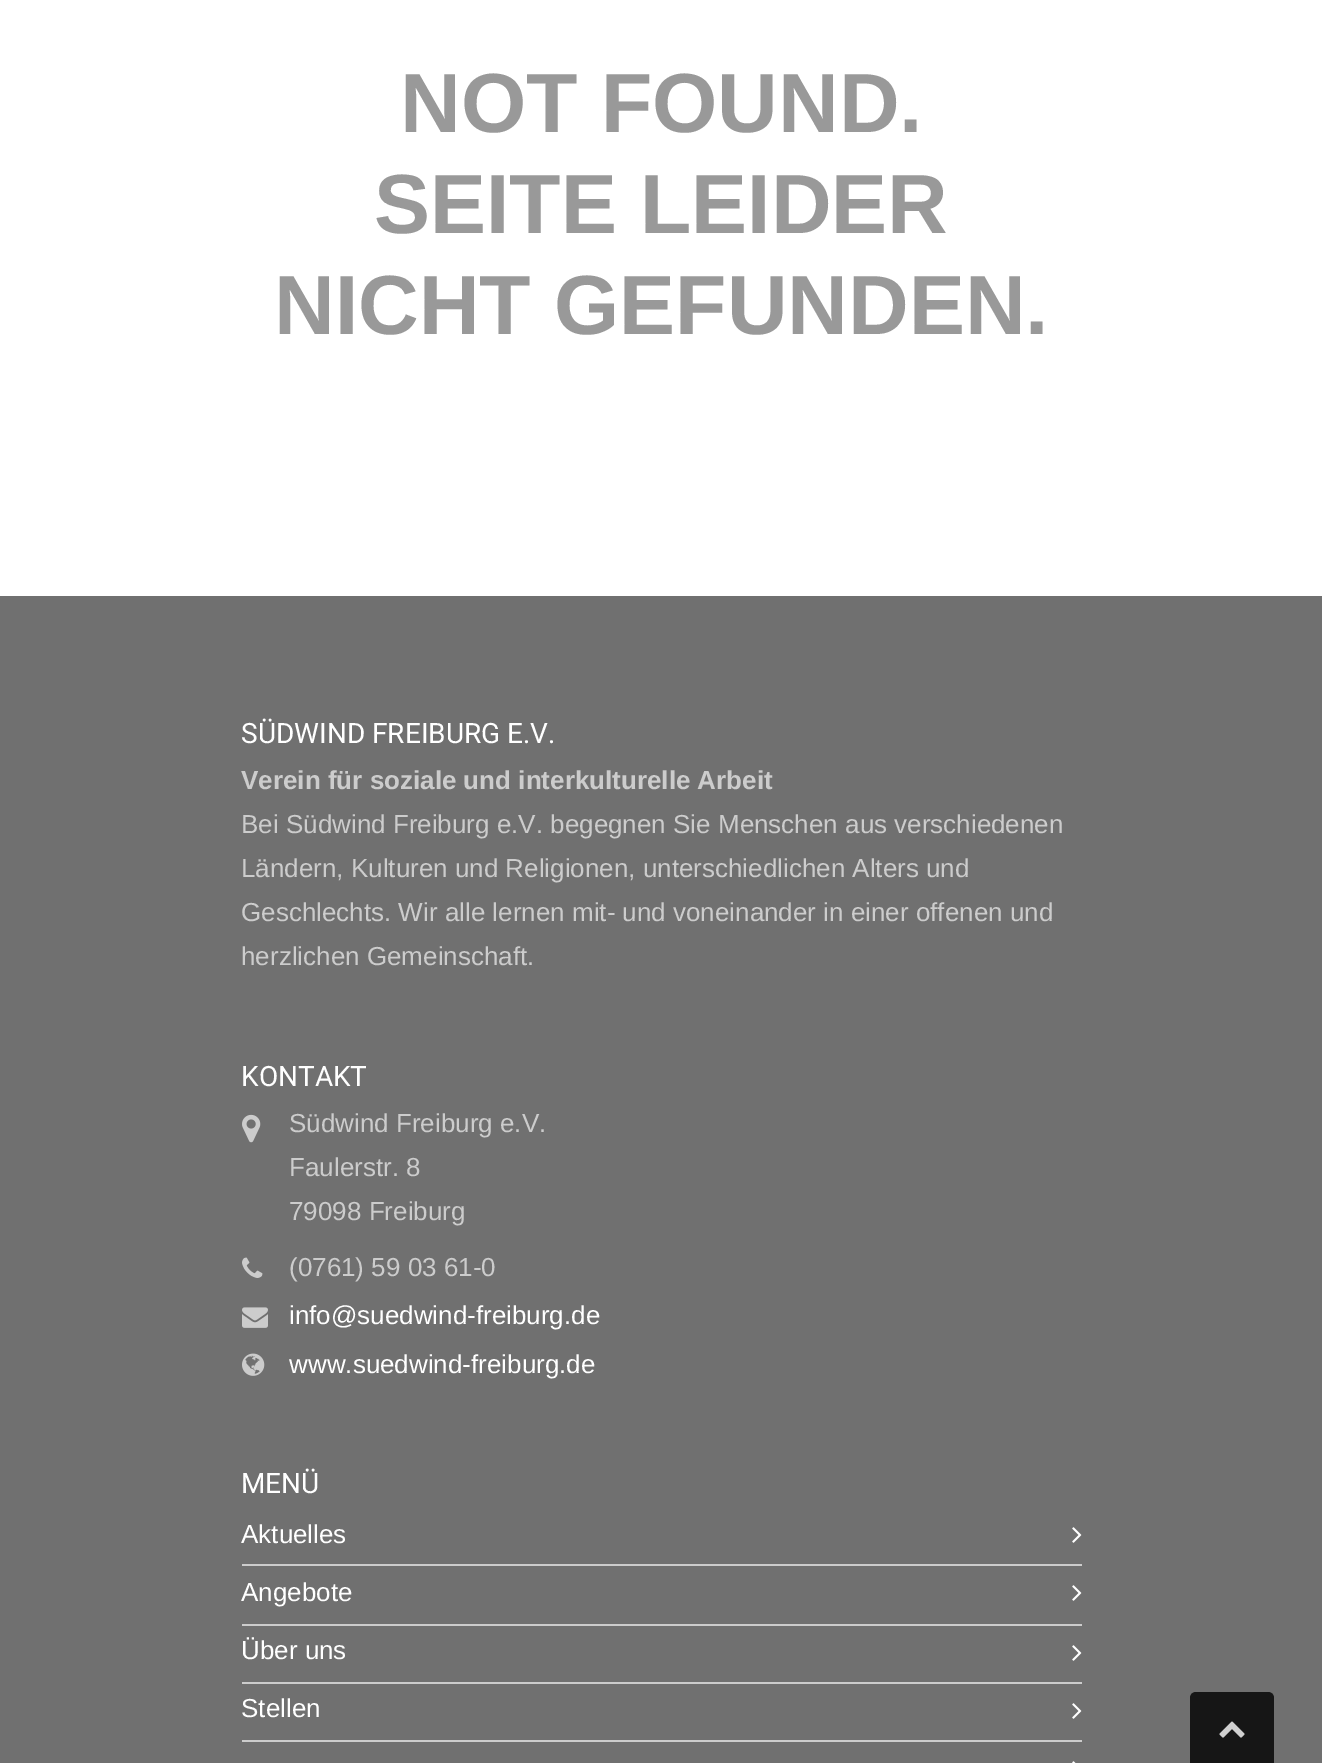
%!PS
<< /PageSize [1322 1763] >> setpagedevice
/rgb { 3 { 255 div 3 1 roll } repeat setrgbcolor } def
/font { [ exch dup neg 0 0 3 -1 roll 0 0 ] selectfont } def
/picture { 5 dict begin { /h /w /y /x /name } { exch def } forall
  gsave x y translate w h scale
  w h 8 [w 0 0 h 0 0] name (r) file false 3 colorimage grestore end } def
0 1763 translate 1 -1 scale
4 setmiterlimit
255 255 255 rgb
0 0 1322 1763 rectfill
112 112 112 rgb
0 596 1322 1167 rectfill
(img/1.rgb) 242 1114 19 29 picture
(img/2.rgb) 242 1257 21 21 picture
(img/3.rgb) 242 1307 26 21 picture
(img/4.rgb) 242 1353 23 23 picture
204 204 204 rgb
242 1564 840 2 rectfill
(img/5.rgb) 1072 1527 10 16 picture
242 1624 840 2 rectfill
(img/5.rgb) 1072 1585 10 16 picture
242 1682 840 2 rectfill
(img/5.rgb) 1072 1645 10 16 picture
242 1740 840 2 rectfill
(img/5.rgb) 1072 1703 10 16 picture
(img/6.rgb) 1072 1761 4 2 picture
22 22 22 rgb
1196 1692 moveto 1268 1692 lineto 1271.5 1692 1274 1694.5 1274 1698 curveto 1274 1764 lineto 1190 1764 lineto 1190 1698 lineto 1190 1694.5 1192.5 1692 1196 1692 curveto closepath fill
(img/7.rgb) 1219 1721 26 17 picture
/LiberationSans-Bold 84 font
153 153 153 rgb
[
  [(NOT FOUND.) 400 132]
  [(SEITE LEIDER) 374 233]
  [(NICHT GEFUNDEN.) 274 334]
] { aload pop moveto show } forall
/Roboto-Regular 28 font
255 255 255 rgb
241 743 moveto (SÜDWIND FREIBURG E.V.) show
/LiberationSans-Bold 26 font
204 204 204 rgb
241 789 moveto (Verein für soziale und interkulturelle Arbeit) show
/LiberationSans-Regular 26 font
[
  [(Bei Südwind Freiburg e.V. begegnen Sie Menschen aus verschiedenen) 241 833]
  [(Ländern, Kulturen und Religionen, unterschiedlichen Alters und) 241 877]
  [(Geschlechts. Wir alle lernen mit- und voneinander in einer offenen und) 241 921]
  [(herzlichen Gemeinschaft.) 241 965]
] { aload pop moveto show } forall
/Roboto-Regular 28 font
255 255 255 rgb
241 1086 moveto (KONTAKT) show
/LiberationSans-Regular 26 font
204 204 204 rgb
[
  [(Südwind Freiburg e.V.) 289 1132]
  [(Faulerstr. 8) 289 1176]
  [(79098 Freiburg) 289 1220]
  [(\(0761\) 59 03 61-0) 289 1276]
] { aload pop moveto show } forall
255 255 255 rgb
289 1324 moveto (info@suedwind-freiburg.de) show
289 1373 moveto (www.suedwind-freiburg.de) show
/Roboto-Regular 28 font
241 1493 moveto (MENÜ) show
/LiberationSans-Regular 26 font
[
  [(Aktuelles) 241 1543]
  [(Angebote) 241 1601]
  [(Über uns) 241 1659]
  [(Stellen) 241 1717]
] { aload pop moveto show } forall
showpage
